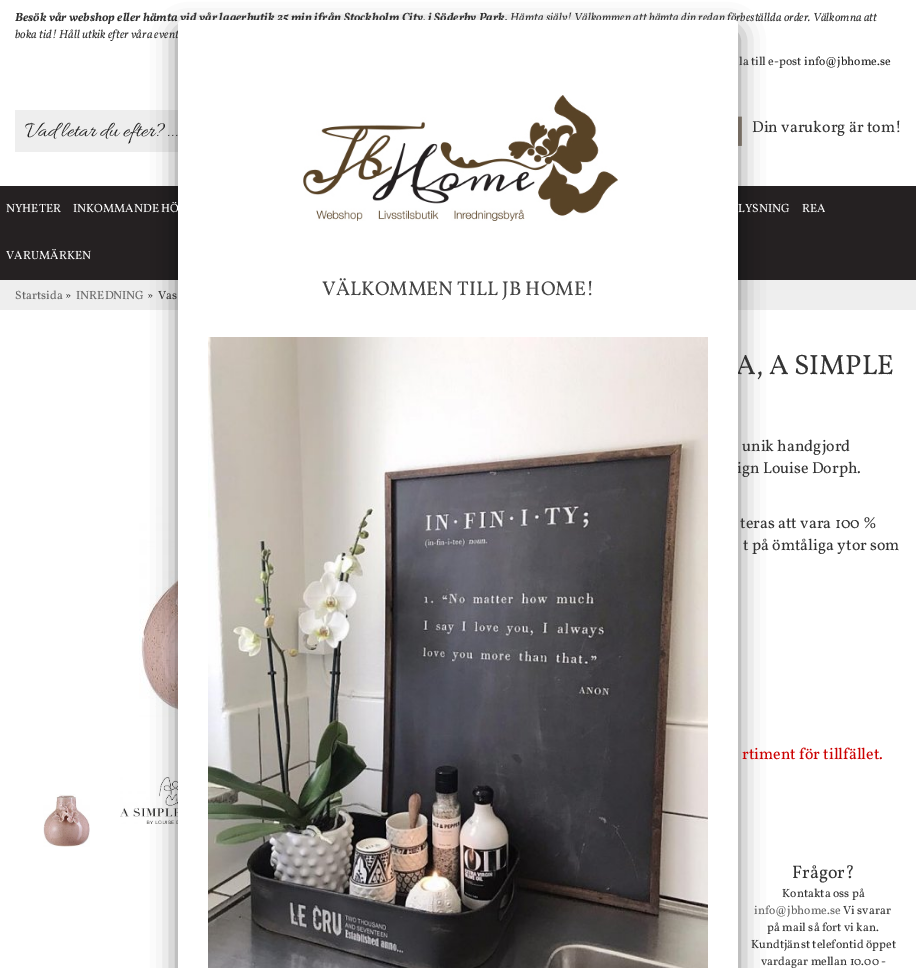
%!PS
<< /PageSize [916 968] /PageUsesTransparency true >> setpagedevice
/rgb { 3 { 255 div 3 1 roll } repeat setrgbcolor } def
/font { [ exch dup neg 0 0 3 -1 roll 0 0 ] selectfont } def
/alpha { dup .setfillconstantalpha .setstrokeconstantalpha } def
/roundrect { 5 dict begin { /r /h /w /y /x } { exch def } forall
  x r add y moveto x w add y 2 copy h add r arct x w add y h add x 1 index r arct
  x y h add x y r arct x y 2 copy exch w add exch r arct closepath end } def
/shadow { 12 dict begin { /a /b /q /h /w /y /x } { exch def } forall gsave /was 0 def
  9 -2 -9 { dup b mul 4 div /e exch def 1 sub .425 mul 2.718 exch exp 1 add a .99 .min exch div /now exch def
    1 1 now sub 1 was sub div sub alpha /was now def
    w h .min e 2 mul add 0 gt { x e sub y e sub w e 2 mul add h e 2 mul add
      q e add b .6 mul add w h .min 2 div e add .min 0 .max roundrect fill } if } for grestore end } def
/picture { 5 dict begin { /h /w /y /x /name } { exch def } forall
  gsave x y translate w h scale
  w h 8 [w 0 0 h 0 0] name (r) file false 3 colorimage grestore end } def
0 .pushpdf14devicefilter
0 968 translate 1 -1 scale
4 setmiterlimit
255 255 255 rgb
0 0 916 968 rectfill
238 238 238 rgb
15 110 163 42 rectfill
(img/1.rgb) 738 116 4 30 picture
37 33 34 rgb
0 186 916 94 rectfill
238 238 238 rgb
0 280 916 30 rectfill
(img/4.rgb) 139 507 39 212 picture
(img/6.rgb) 120 777 58 47 picture
0 0 0 rgb
178 30 560 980 4 12.5 0.5 shadow
(img/5.rgb) 43 794 47 53 picture
/Vollkorn-BoldItalic 12 font
51 51 51 rgb
15 21 moveto (Besök vår webshop eller hämta vid vår lagerbutik 25 min ifrån Stockholm City, i Söderby Park.) show
/Vollkorn-Italic 12 font
510 21 moveto (Hämta själv! Välkommen att hämta din redan förbeställda order. Välkomna att) show
15 38 moveto (boka tid! Håll utkik efter våra event) show
/Vollkorn-Regular 12 font
739 65 moveto (la till e-post) show
34 34 34 rgb
804 65 moveto (info@jbhome.se) show
/Allura-Regular 22 font
25 136 moveto (Vad letar du efter?...) show
/Vollkorn-Regular 16 font
51 51 51 rgb
752 132 moveto (Din varukorg är tom!) show
/Vollkorn-Regular 12 font
255 255 255 rgb
[
  [(NYHETER) 6 212]
  [(INKOMMANDE HÖ) 73 212]
  [(LYSNING) 738 212]
  [(REA) 802 212]
  [(VARUMÄRKEN) 6 259]
] { aload pop moveto show } forall
102 102 102 rgb
15 299 moveto (Startsida) show
51 51 51 rgb
65 299 moveto (») show
102 102 102 rgb
76 299 moveto (INREDNING) show
51 51 51 rgb
147 299 moveto (») show
158 299 moveto (Vas) show
/Vollkorn-Regular 28 font
736 374 moveto (A, A SIMPLE) show
/Vollkorn-Regular 16 font
742 451 moveto (unik handgjord) show
737 473 moveto (ign Louise Dorph.) show
255 255 255 rgb
182 20 moveto 734 20 lineto 736 20 738 22 738 24 curveto 738 968 lineto 178 968 lineto 178 24 lineto 178 22 180 20 182 20 curveto closepath fill
(img/3.rgb) 208 337 500 631 picture
/Vollkorn-Regular 20 font
68 68 68 rgb
322 295 moveto (VÄLKOMMEN TILL JB HOME!) show
(img/2.rgb) 303 95 315 126 picture
/Vollkorn-Regular 16 font
51 51 51 rgb
740 528 moveto (teras att vara 100 %) show
743 550 moveto (t på ömtåliga ytor som) show
204 0 0 rgb
742 759 moveto (rtiment för tillfället.) show
/Vollkorn-Regular 18 font
51 51 51 rgb
792 878 moveto (Frågor?) show
/Vollkorn-Regular 12 font
782 897 moveto (Kontakta oss på) show
102 102 102 rgb
754 914 moveto (info@jbhome.se) show
51 51 51 rgb
[
  [(Vi svarar) 843 914]
  [(på mail så fort vi kan.) 767 931]
  [(Kundtjänst telefontid öppet) 751 948]
  [(vardagar mellan 10.00 -) 761 965]
] { aload pop moveto show } forall
.poppdf14devicefilter showpage
